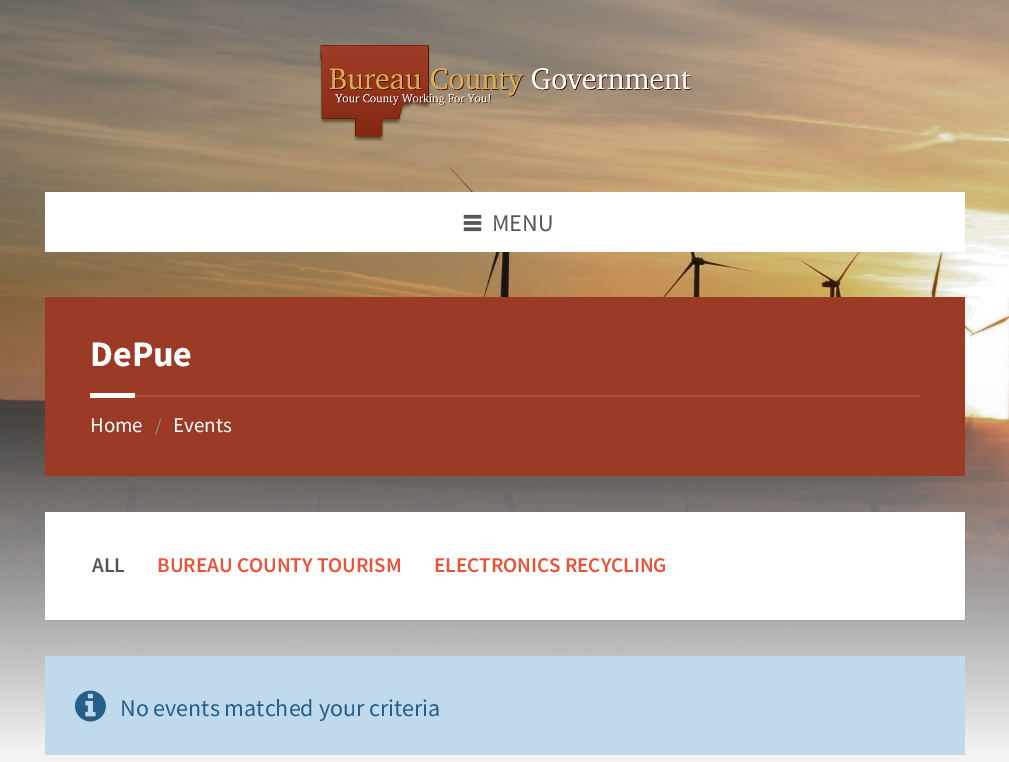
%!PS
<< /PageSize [1009 762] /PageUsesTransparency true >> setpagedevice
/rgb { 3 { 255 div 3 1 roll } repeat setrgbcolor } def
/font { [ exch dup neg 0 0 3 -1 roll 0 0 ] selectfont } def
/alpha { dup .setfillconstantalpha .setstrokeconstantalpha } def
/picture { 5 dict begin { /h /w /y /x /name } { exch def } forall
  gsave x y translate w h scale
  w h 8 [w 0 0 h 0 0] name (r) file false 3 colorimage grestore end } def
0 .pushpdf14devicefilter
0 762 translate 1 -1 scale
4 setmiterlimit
242 242 242 rgb
0 0 1009 762 rectfill
(img/1.rgb) 0 0 1009 750 picture
(img/2.rgb) 319 45 373 97 picture
255 255 255 rgb
45 192 920 60 rectfill
(img/3.rgb) 463 214 19 18 picture
[
  [45 297 920 179 155 58 37]
  [135 395 785 2 165 78 59]
  [90 393 45 5 255 255 255]
] { aload pop rgb rectfill } forall
0.05 alpha
0 0 0 rgb
47 620 moveto 47 621 lineto 966 621 lineto 966 513 lineto 964 513 lineto 964 620 lineto closepath fill
1 alpha
255 255 255 rgb
45 512 920 108 rectfill
192 218 237 rgb
45 656 920 99 rectfill
(img/4.rgb) 75 690 31 32 picture
/SourceSansPro-Regular 24 font
86 86 86 rgb
492 231 moveto (MENU) show
/SourceSansPro-Bold 36 font
255 255 255 rgb
90 366 moveto (DePue) show
/SourceSansPro-Regular 21 font
90 432 moveto (Home) show
/SourceSansPro-Regular 18 font
138 148 155 rgb
155 432 moveto (/) show
/SourceSansPro-Regular 21 font
255 255 255 rgb
173 432 moveto (Events) show
/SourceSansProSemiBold-SemiBold 21 font
86 86 86 rgb
92 572 moveto (ALL) show
236 82 55 rgb
157 572 moveto (BUREAU COUNTY TOURISM) show
434 572 moveto (ELECTRONICS RECYCLING) show
/SourceSansPro-Regular 24 font
38 94 136 rgb
120 716 moveto (No events matched your criteria) show
.poppdf14devicefilter showpage
